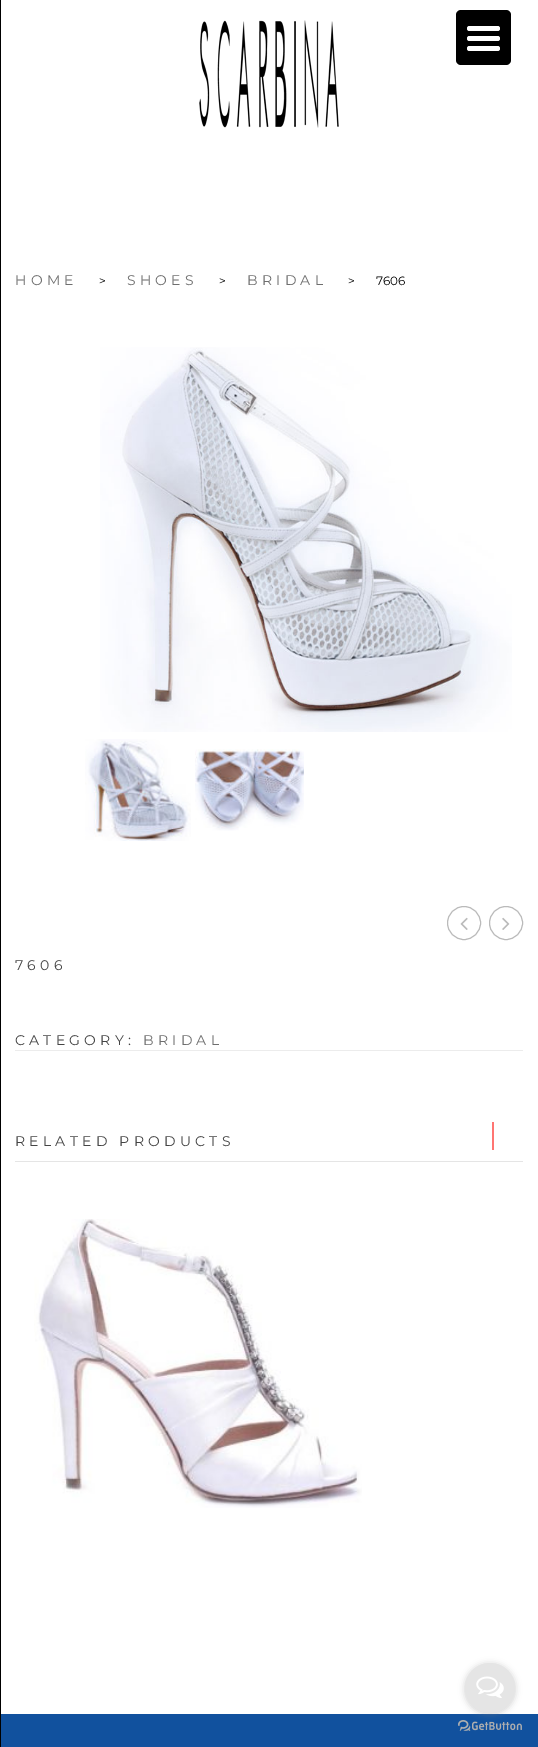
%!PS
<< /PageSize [538 1747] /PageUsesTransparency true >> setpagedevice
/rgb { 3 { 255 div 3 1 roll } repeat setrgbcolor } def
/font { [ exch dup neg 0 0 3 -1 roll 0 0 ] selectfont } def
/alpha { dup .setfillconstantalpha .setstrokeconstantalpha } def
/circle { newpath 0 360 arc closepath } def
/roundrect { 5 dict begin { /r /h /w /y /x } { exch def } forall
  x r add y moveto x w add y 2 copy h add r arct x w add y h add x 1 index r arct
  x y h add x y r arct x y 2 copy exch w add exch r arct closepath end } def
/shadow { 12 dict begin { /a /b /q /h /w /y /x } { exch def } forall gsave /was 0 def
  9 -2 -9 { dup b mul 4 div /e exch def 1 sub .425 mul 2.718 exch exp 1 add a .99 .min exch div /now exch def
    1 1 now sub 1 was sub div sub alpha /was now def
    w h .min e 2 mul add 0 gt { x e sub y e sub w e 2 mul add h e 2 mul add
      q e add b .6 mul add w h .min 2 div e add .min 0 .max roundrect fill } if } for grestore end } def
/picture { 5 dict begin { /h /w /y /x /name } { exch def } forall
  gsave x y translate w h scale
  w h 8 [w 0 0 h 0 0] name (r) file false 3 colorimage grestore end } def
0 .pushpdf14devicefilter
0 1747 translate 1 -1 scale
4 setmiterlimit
255 255 255 rgb
0 0 538 1747 rectfill
0 0 0 rgb
0 0 1 1747 rectfill
456 10 55 55 5 roundrect fill
255 255 255 rgb
467 36 33 5 2.5 roundrect fill
467 26 33 5 2.5 roundrect fill
467 46 33 5 2.5 roundrect fill
(img/1.rgb) 199 20 140 108 picture
(img/2.rgb) 100 347 412 385 picture
(img/3.rgb) 85 739 106 102 picture
(img/4.rgb) 195 749 109 82 picture
186 186 186 rgb
464 923 16.5 circle stroke
(img/5.rgb) 460 917 8 13 picture
506 923 16.5 circle stroke
(img/6.rgb) 502 917 8 13 picture
236 236 236 rgb
15 1050 508 1 rectfill
255 117 114 rgb
492 1122 2 28 rectfill
(img/7.rgb) 34 1219 328 289 picture
229 229 229 rgb
15 1161 508 1 rectfill
17 81 158 rgb
1 1714 537 33 rectfill
(img/9.rgb) 458 1720 64 11 picture
136 136 136 rgb
465 1664 50 50 25 3.5 0.4 shadow
229 229 229 rgb
490 1688 25 circle fill
(img/8.rgb) 476 1676 28 22 picture
/Montserrat-Regular 14 font
110 110 110 rgb
15 285 moveto 4.25 0 (HOME) ashow
/Montserrat-Regular 12 font
0 0 0 rgb
99 285 moveto (>) show
/Montserrat-Regular 14 font
110 110 110 rgb
127 285 moveto 4.25 0 (SHOES) ashow
/Montserrat-Regular 12 font
0 0 0 rgb
219 285 moveto (>) show
/Montserrat-Regular 14 font
110 110 110 rgb
247 285 moveto 4.25 0 (BRIDAL) ashow
/Montserrat-Regular 12 font
0 0 0 rgb
348 285 moveto (>) show
376 285 moveto (7606) show
/Montserrat-Regular 14 font
68 68 68 rgb
15 970 moveto 4.25 0 (7606) ashow
15 1045 moveto 4.25 0 (CATEGORY:) ashow
110 110 110 rgb
143 1045 moveto 4.25 0 (BRIDAL) ashow
68 68 68 rgb
15 1146 moveto 4.25 0 (RELATED PRODUCTS) ashow
.poppdf14devicefilter showpage
